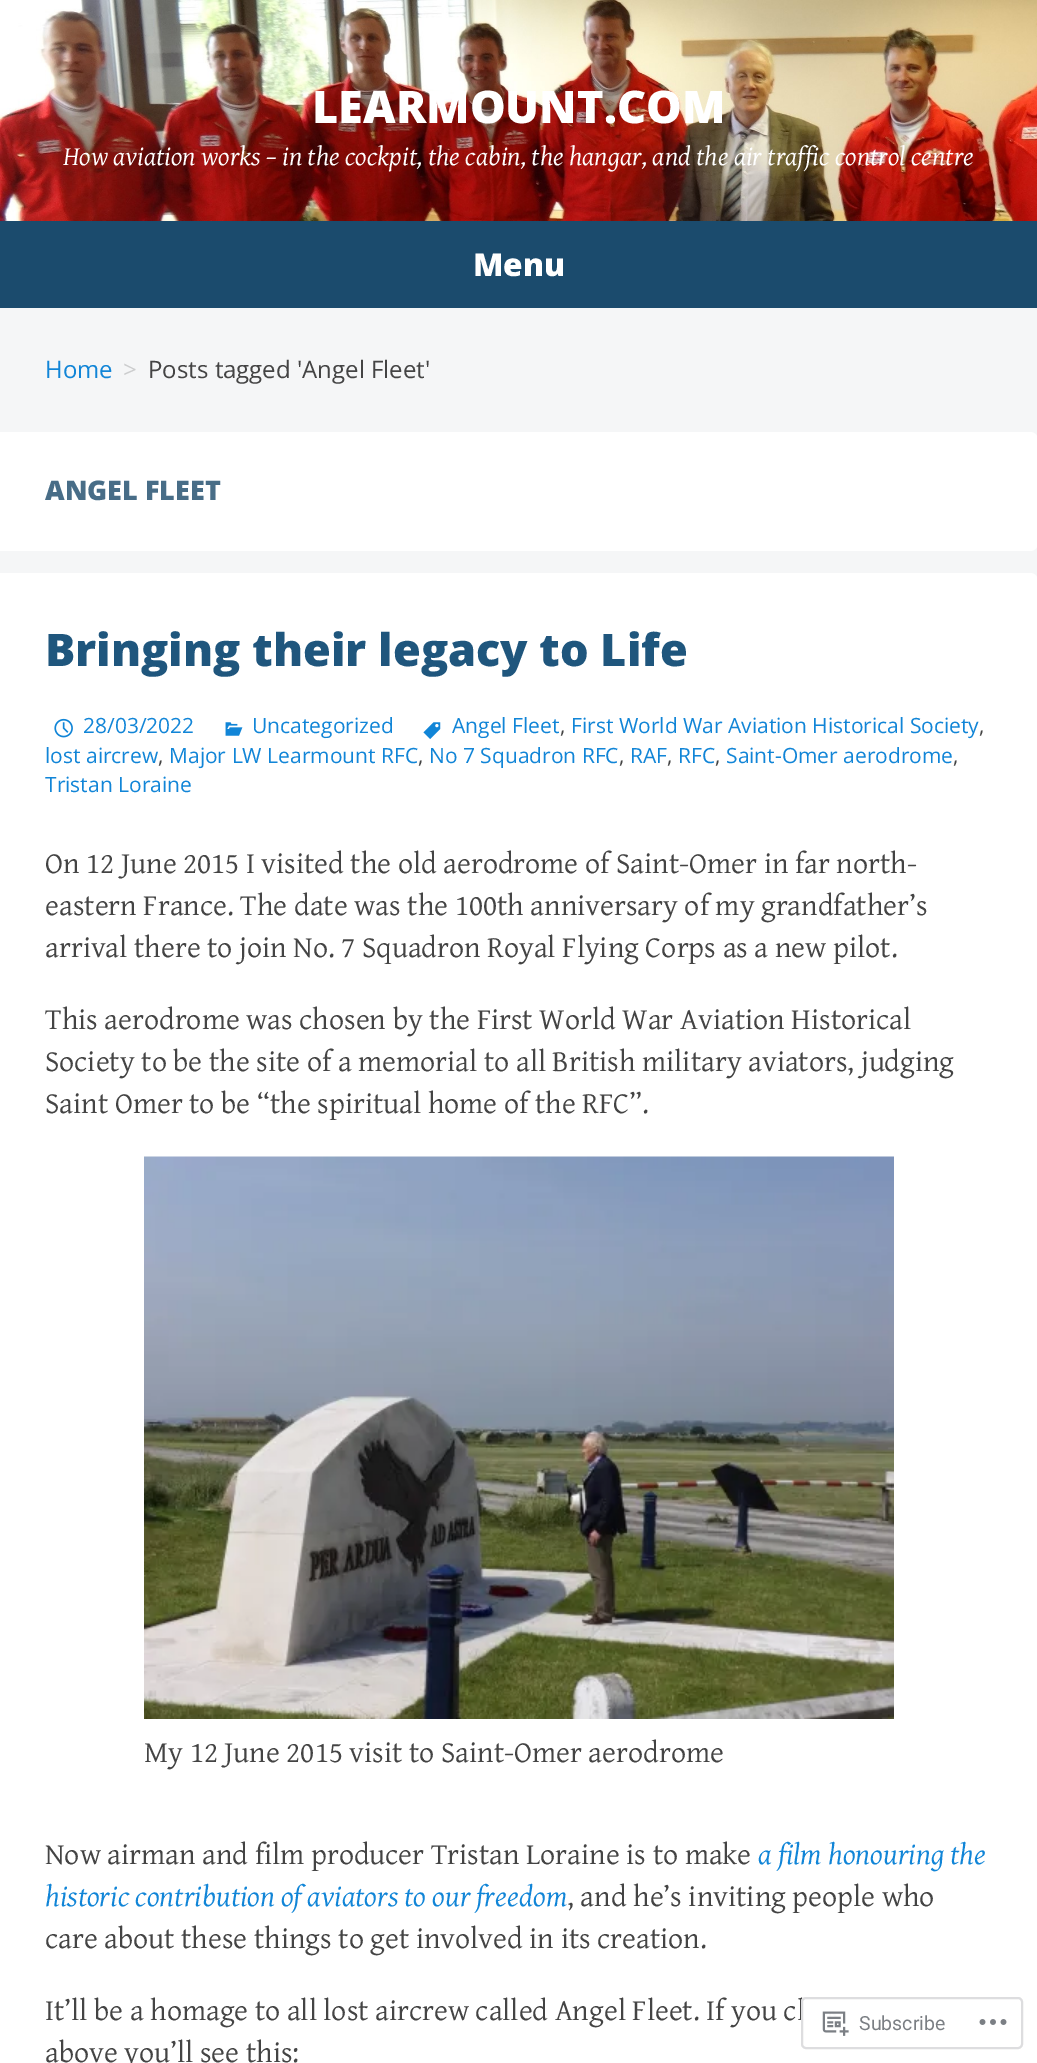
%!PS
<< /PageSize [1037 2063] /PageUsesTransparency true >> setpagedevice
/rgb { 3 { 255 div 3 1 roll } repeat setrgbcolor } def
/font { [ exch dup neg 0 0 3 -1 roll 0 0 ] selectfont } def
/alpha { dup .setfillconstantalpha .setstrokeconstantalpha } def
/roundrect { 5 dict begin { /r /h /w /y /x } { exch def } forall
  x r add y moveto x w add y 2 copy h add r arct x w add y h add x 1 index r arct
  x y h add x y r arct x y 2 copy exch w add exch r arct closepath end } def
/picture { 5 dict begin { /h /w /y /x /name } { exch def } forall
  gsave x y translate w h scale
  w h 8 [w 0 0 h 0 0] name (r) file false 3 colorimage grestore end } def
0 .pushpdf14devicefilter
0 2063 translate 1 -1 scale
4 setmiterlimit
245 246 247 rgb
0 0 1037 2063 rectfill
(img/1.rgb) 0 0 1037 221 picture
27 75 109 rgb
0 221 1037 87 rectfill
255 255 255 rgb
0 432 moveto 1030 432 lineto 1034.5 432 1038 435.5 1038 440 curveto 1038 543 lineto 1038 547.5 1034.5 551 1030 551 curveto 0 551 lineto closepath fill
0 573 moveto 1030 573 lineto 1034.5 573 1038 576.5 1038 581 curveto 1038 2063 lineto 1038 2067.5 1034.5 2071 1030 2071 curveto 0 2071 lineto closepath fill
(img/2.rgb) 423 722 18 17 picture
(img/3.rgb) 54 718 19 20 picture
(img/4.rgb) 225 722 18 14 picture
(img/5.rgb) 144 1156 750 563 picture
/OpenSans-ExtraBold 45 font
312 123 moveto (LEARMOUNT.COM) show
/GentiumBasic-Italic 27 font
63 165 moveto (How aviation works – in the cockpit, the cabin, the hangar, and the air traffic control centre) show
/OpenSans-ExtraBold 31.5 font
473 276 moveto (Menu) show
/OpenSans-Regular 24 font
17 133 215 rgb
45 378 moveto (Home) show
204 205 206 rgb
123 378 moveto (>) show
68 68 68 rgb
148 378 moveto (Posts tagged 'Angel Fleet') show
/OpenSans-ExtraBold 27 font
72 109 135 rgb
45 500 moveto (ANGEL FLEET) show
/OpenSans-ExtraBold 45 font
31 86 125 rgb
45 666 moveto (Bringing their legacy to Life) show
/OpenSans-Regular 21 font
17 133 215 rgb
452 733 moveto (Angel Fleet) show
68 68 68 rgb
560 733 moveto (,) show
17 133 215 rgb
571 733 moveto (First World War Aviation Historical Society) show
68 68 68 rgb
979 733 moveto (,) show
17 133 215 rgb
45 763 moveto (lost aircrew) show
68 68 68 rgb
158 763 moveto (,) show
17 133 215 rgb
169 763 moveto (Major LW Learmount RFC) show
68 68 68 rgb
418 763 moveto (,) show
17 133 215 rgb
429 763 moveto (No 7 Squadron RFC) show
68 68 68 rgb
619 763 moveto (,) show
17 133 215 rgb
630 763 moveto (RAF) show
68 68 68 rgb
667 763 moveto (,) show
17 133 215 rgb
678 763 moveto (RFC) show
68 68 68 rgb
715 763 moveto (,) show
17 133 215 rgb
726 763 moveto (Saint-Omer aerodrome) show
68 68 68 rgb
953 763 moveto (,) show
17 133 215 rgb
[
  [(Tristan Loraine) 45 792]
  [(28/03/2022) 83 733]
  [(Uncategorized) 252 733]
] { aload pop moveto show } forall
/GentiumBasic-Regular 30 font
68 68 68 rgb
[
  [(On 12 June 2015 I visited the old aerodrome of Saint-Omer in far north-) 45 873]
  [(eastern France. The date was the 100th anniversary of my grandfather’s) 45 915]
  [(arrival there to join No. 7 Squadron Royal Flying Corps as a new pilot.) 45 957]
  [(This aerodrome was chosen by the First World War Aviation Historical) 45 1029]
  [(Society to be the site of a memorial to all British military aviators, judging) 45 1071]
  [(Saint Omer to be “the spiritual home of the RFC”.) 45 1113]
  [(My 12 June 2015 visit to Saint-Omer aerodrome) 144 1762]
  [(Now airman and film producer Tristan Loraine is to make) 45 1864]
] { aload pop moveto show } forall
/GentiumBasic-Italic 30 font
17 133 215 rgb
758 1864 moveto (a film honouring the) show
45 1906 moveto (historic contribution of aviators to our freedom) show
/GentiumBasic-Regular 30 font
68 68 68 rgb
[
  [(, and he’s inviting people who) 567 1906]
  [(care about these things to get involved in its creation.) 45 1948]
  [(It’ll be a homage to all lost aircrew called Angel Fleet. If you cl) 45 2020]
  [(above you’ll see this:) 45 2062]
] { aload pop moveto show } forall
0.98 alpha
255 255 255 rgb
801 1997 222 52 5 roundrect fill
220 220 222 rgb
2 setlinewidth
802 1998 220 50 4 roundrect stroke
1 alpha
(img/6.rgb) 822 2011 27 25 picture
/Roboto-Regular 19.5 font
123 127 132 rgb
859 2030 moveto (Subscribe) show
(img/7.rgb) 979 2019 28 6 picture
.poppdf14devicefilter showpage
